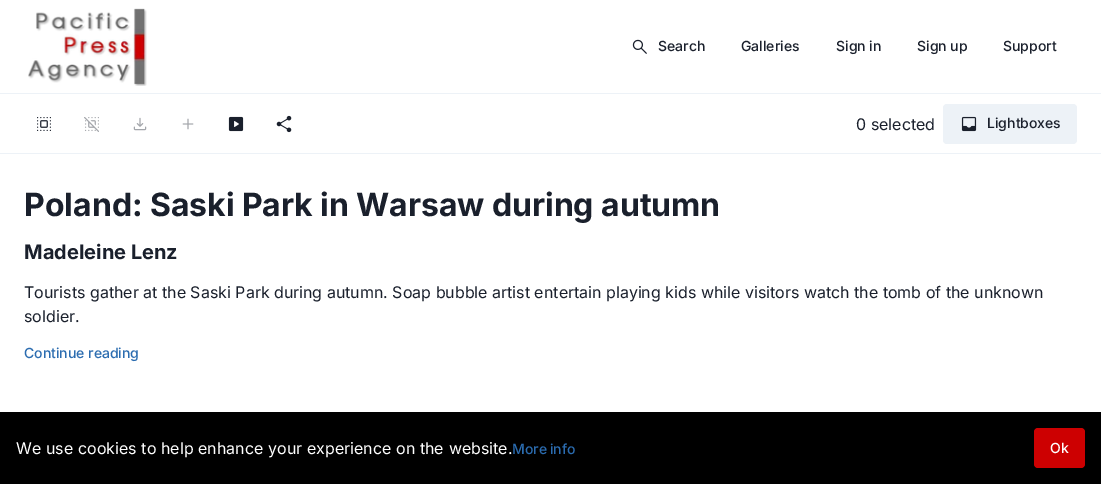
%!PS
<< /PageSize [1101 484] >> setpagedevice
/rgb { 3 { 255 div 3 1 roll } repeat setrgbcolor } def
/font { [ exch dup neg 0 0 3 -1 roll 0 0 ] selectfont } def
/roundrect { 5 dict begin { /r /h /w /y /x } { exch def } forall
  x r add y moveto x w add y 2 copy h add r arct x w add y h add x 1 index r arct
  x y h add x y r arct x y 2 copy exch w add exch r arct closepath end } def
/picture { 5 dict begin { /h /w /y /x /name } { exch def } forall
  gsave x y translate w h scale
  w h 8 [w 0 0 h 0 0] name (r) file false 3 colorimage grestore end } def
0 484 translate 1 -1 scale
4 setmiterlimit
255 255 255 rgb
0 0 1101 484 rectfill
237 242 247 rgb
0 93 1101 1 rectfill
(img/1.rgb) 28 8 119 78 picture
(img/2.rgb) 632 39 15 15 picture
0 153 1101 1 rectfill
(img/3.rgb) 37 117 14 14 picture
(img/4.rgb) 84 117 15 15 picture
(img/5.rgb) 133 117 14 14 picture
(img/6.rgb) 182 118 12 12 picture
(img/7.rgb) 228 116 16 16 picture
(img/8.rgb) 276 115 16 18 picture
943 104 134 40 4 roundrect fill
(img/9.rgb) 961 116 16 16 picture
0 0 0 rgb
0 412 1101 72 rectfill
205 0 1 rgb
1034 428 51 40 4 roundrect fill
/Inter-Medium 14 font
26 32 44 rgb
[
  [(Search) 658 51]
  [(Galleries) 741 51]
  [(Sign in) 836 51]
  [(Sign up) 917 51]
  [(Support) 1003 51]
] { aload pop moveto show } forall
/Inter-Regular 16 font
856 130 moveto (0 selected) show
/Inter-Medium 14 font
987 128 moveto (Lightboxes) show
/Inter-Bold 32 font
24 216 moveto -0.25 0 32 (Poland: Saski Park in Warsaw during autumn) widthshow
/Inter-Bold 20 font
24 259 moveto (Madeleine Lenz) show
/Inter-Regular 16 font
24 298 moveto (Tourists gather at the Saski Park during autumn. Soap bubble artist entertain playing kids while visitors watch the tomb of the unknown) show
24 322 moveto (soldier.) show
/Inter-Medium 14 font
43 108 176 rgb
24 358 moveto (Continue reading) show
/Inter-Regular 16 font
255 255 255 rgb
16 454 moveto 0.25 0 32 (We use cookies to help enhance your experience on the website.) widthshow
/Inter-Medium 14 font
43 108 176 rgb
512 454 moveto -1 0 32 (More info) widthshow
255 255 255 rgb
1050 453 moveto (Ok) show
showpage
